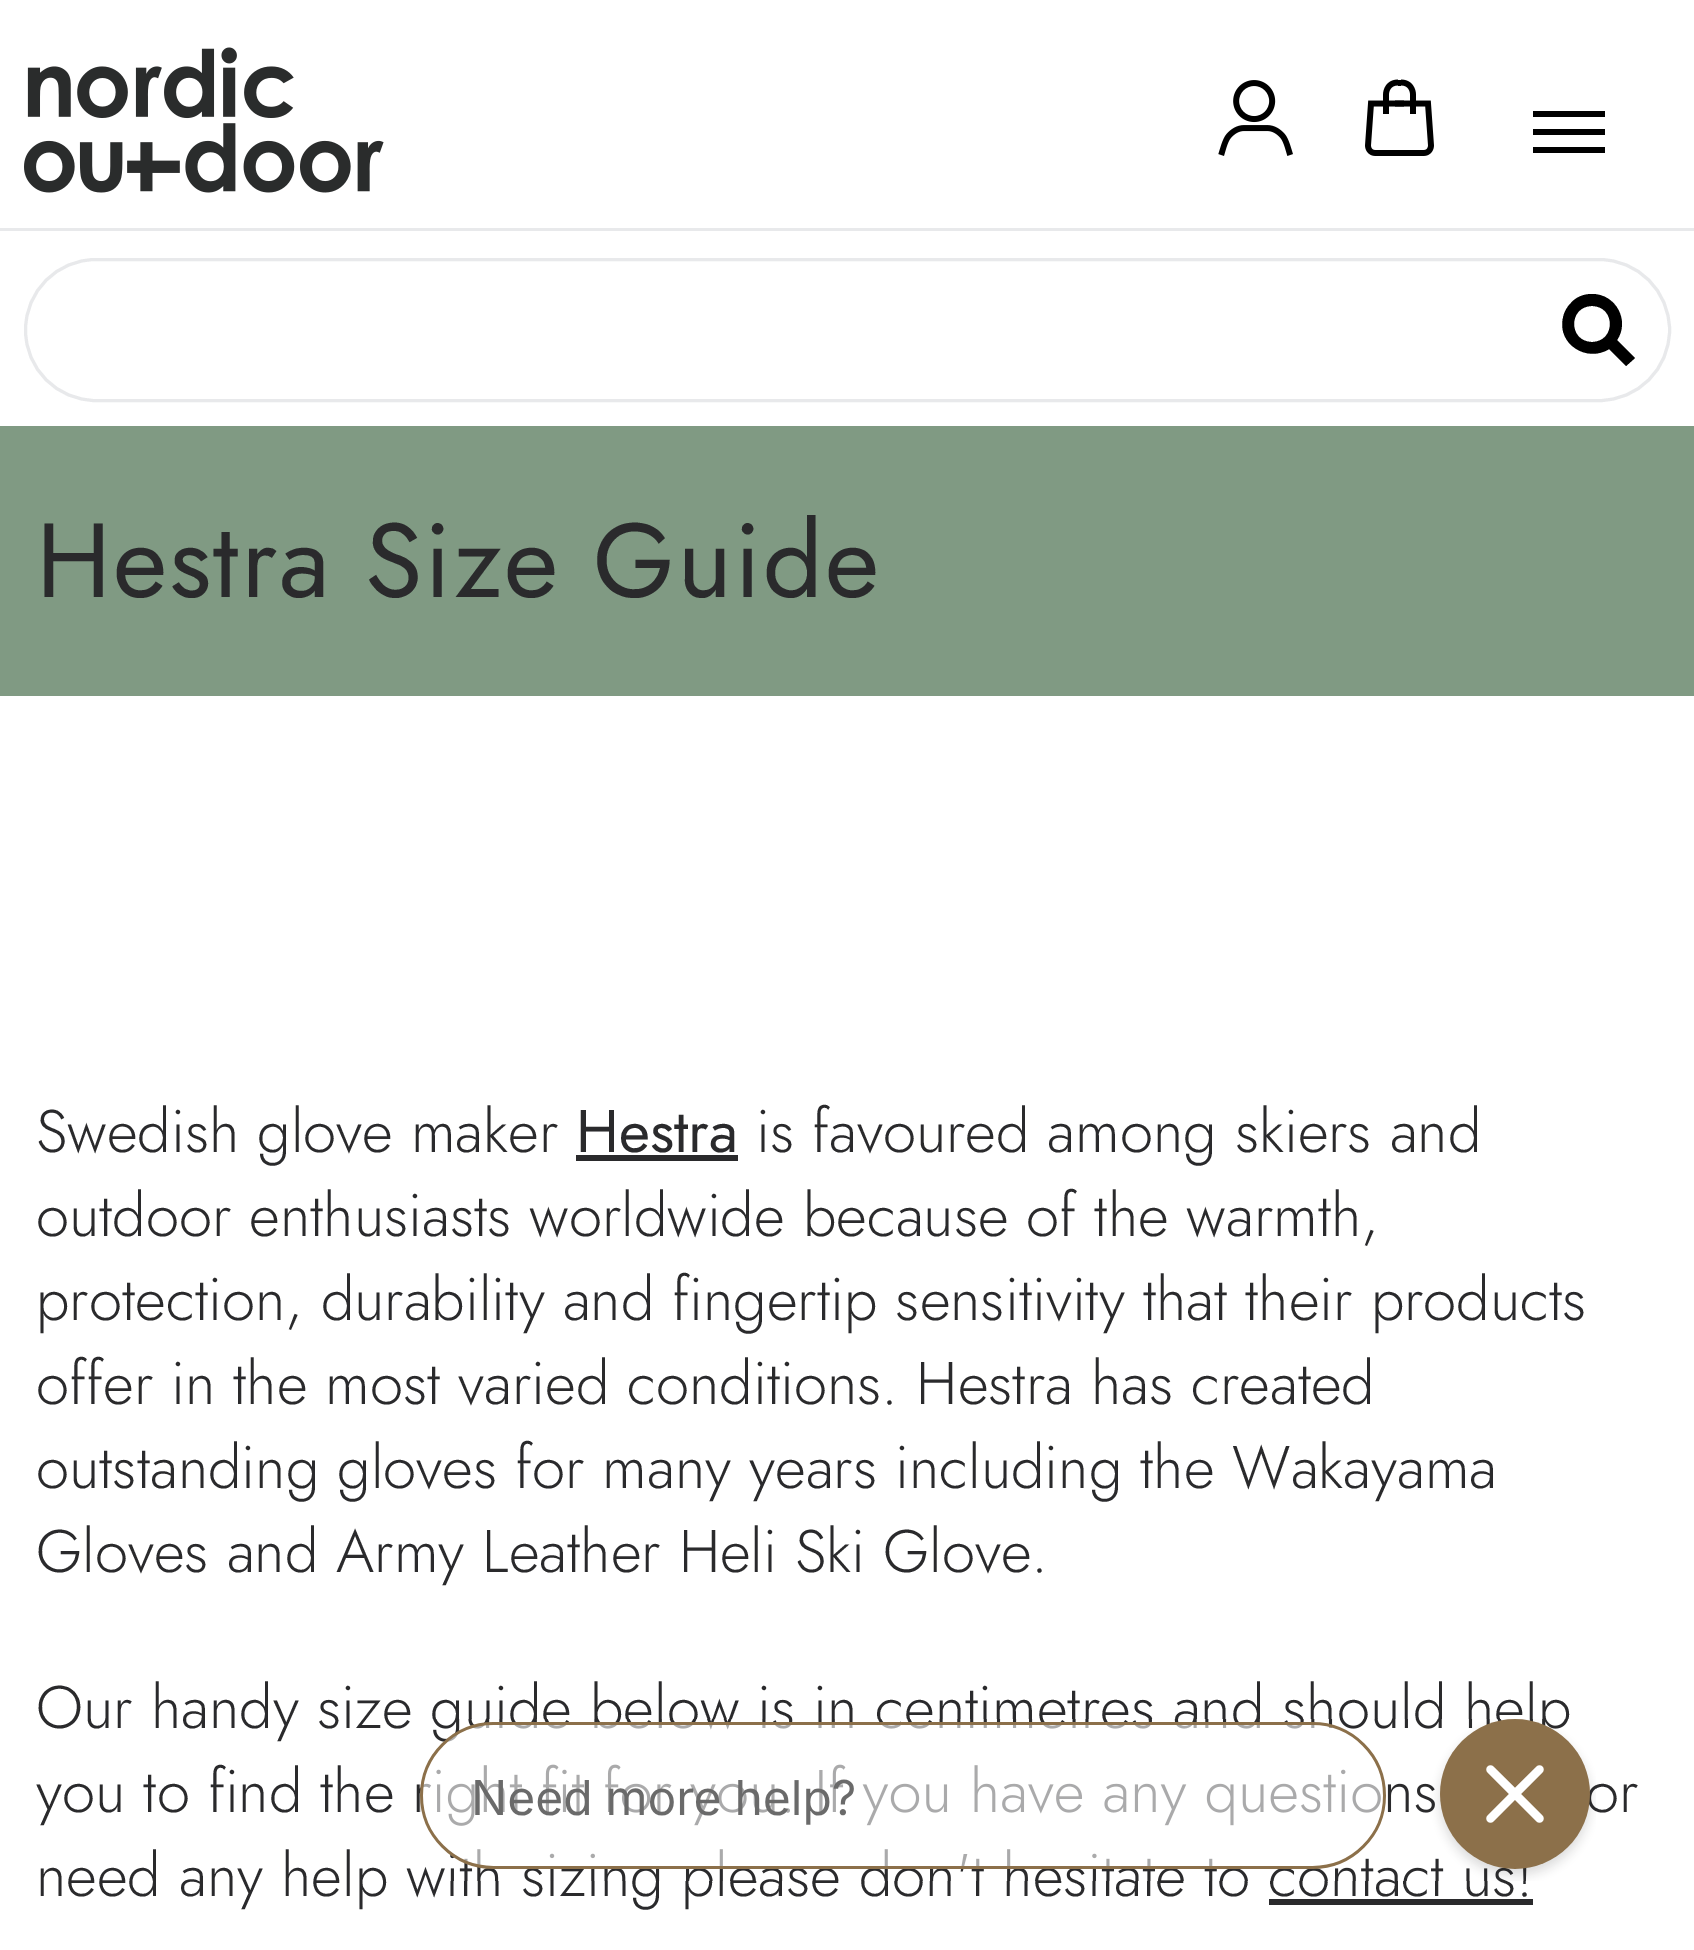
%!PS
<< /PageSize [1694 1950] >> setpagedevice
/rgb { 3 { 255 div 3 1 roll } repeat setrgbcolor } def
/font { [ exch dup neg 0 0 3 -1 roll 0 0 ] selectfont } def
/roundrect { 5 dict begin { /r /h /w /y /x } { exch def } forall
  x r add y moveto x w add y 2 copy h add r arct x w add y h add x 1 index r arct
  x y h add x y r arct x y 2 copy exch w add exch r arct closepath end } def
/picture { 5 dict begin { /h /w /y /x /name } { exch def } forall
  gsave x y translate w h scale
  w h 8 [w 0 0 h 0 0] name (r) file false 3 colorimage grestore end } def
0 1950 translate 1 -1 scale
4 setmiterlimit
255 255 255 rgb
0 0 1694 1950 rectfill
(img/1.rgb) 24 47 360 146 picture
(img/2.rgb) 1218 80 75 76 picture
(img/3.rgb) 1365 79 69 77 picture
[
  [1533 129 72 6 0 0 0]
  [1533 111 72 6 0 0 0]
  [1533 147 72 6 0 0 0]
  [0 228 1694 3 232 233 235]
] { aload pop rgb rectfill } forall
3 setlinewidth
25.5 259.5 1644 141 70.5 roundrect stroke
0 0 0 rgb
1592 294 moveto 1616 294 1630 321 1617 340 curveto 1635 358 lineto 1626 366 lineto 1609 349 lineto 1587 363 1557 344 1563 318 curveto 1564 312 1567 307 1571 303 curveto 1576 297 1584 294 1592 294 curveto closepath 1592 306 moveto 1568 306 1568 342 1592 342 curveto 1616 342 1616 306 1592 306 curveto closepath eofill
[
  [0 426 1694 270 128 154 131]
  [576 1155 162 6 42 42 44]
  [1269 1899 264 6 42 42 44]
] { aload pop rgb rectfill } forall
/Jost-Regular 105 font
36 597 moveto 2 0 (Hestra Size Guide) ashow
/Jost-Light 60 font
36 1152 moveto (Swedish glove maker) show
/Jost-Regular 60 font
576 1152 moveto (Hestra) show
/Jost-Light 60 font
[
  [(is favoured among skiers and) 756 1152]
  [(outdoor enthusiasts worldwide because of the warmth,) 36 1236]
  [(protection, durability and fingertip sensitivity that their products) 36 1320]
  [(offer in the most varied conditions. Hestra has created) 36 1404]
  [(outstanding gloves for many years including the Wakayama) 36 1488]
  [(Gloves and Army Leather Heli Ski Glove.) 36 1572]
  [(Our handy size guide below is in centimetres and should help) 36 1728]
  [(you to find the right fit for you. If you have any questions) 36 1812]
  [(or) 1586 1812]
  [(need any help with sizing please don't hesitate to contact us!) 36 1896]
] { aload pop moveto show } forall
(img/4.rgb) 420 1719 1176 162 picture
showpage
